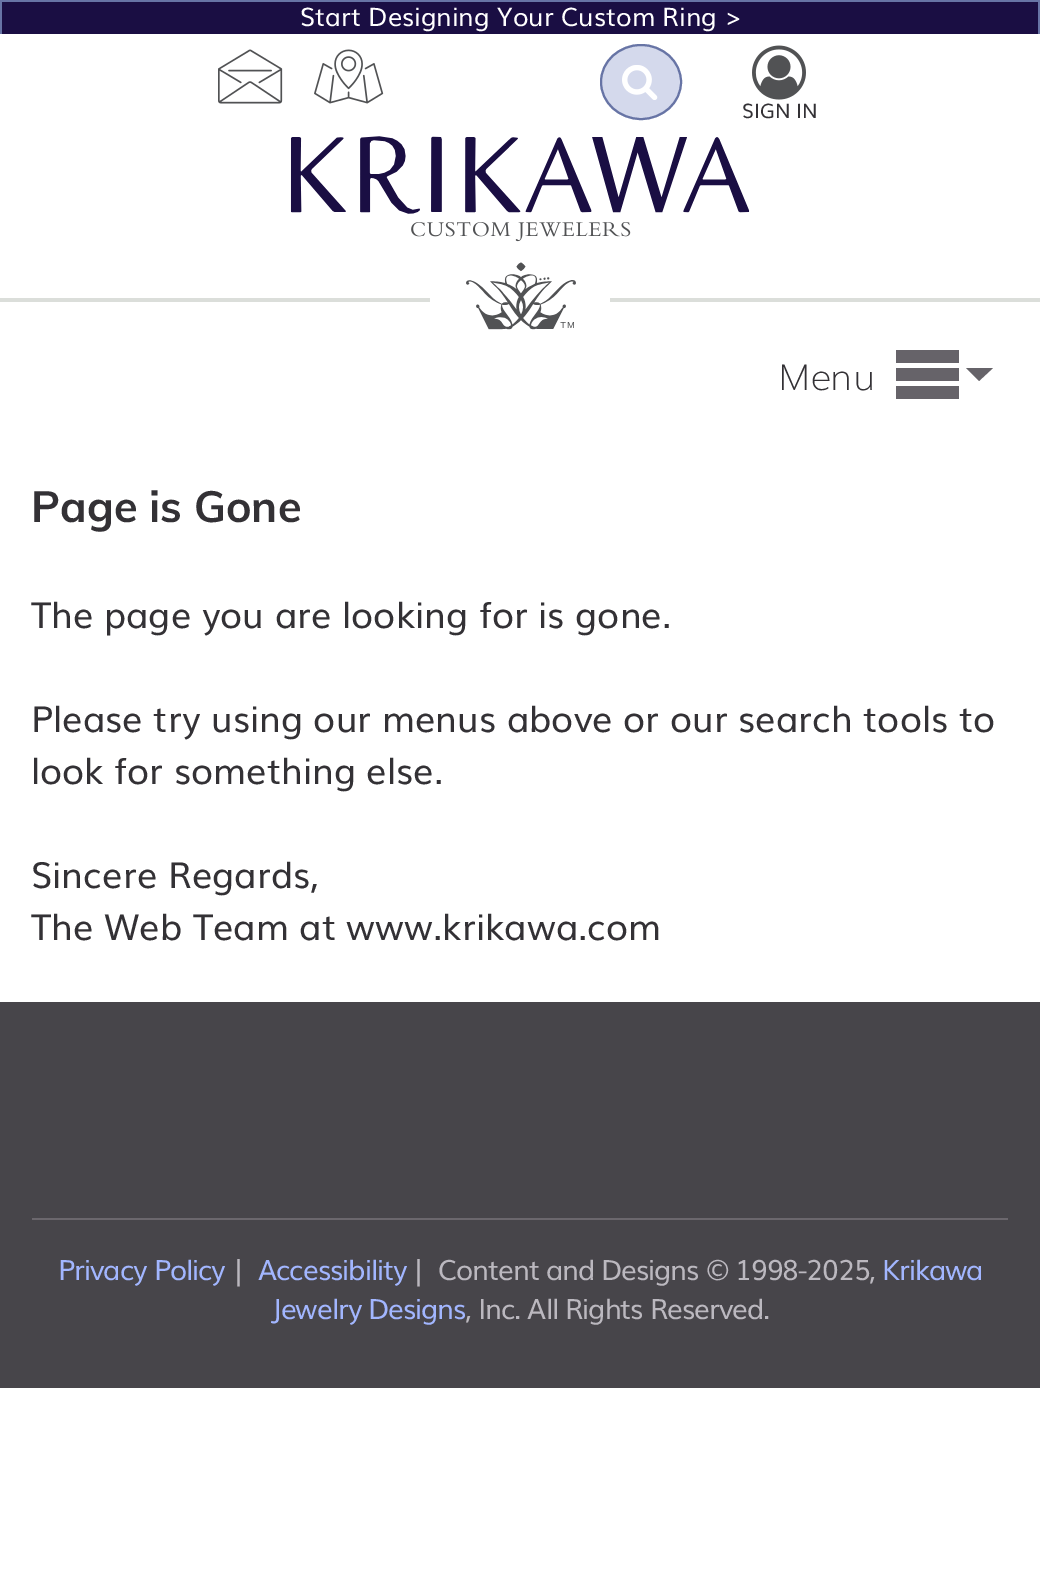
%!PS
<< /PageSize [1040 1591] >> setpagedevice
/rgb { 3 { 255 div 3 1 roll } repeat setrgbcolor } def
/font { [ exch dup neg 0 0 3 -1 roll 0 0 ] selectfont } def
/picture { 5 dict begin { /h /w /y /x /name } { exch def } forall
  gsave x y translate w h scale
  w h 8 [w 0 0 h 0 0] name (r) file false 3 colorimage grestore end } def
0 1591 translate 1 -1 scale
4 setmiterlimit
255 255 255 rgb
0 0 1040 1591 rectfill
[
  [2 2 1036 32 26 14 67]
  [0 0 1040 2 103 116 165]
  [1038 0 2 34 103 116 165]
  [0 0 2 34 103 116 165]
] { aload pop rgb rectfill } forall
(img/1.rgb) 218 49 65 55 picture
(img/2.rgb) 314 49 70 55 picture
212 217 236 rgb
641 44 moveto 663.5 44 682 61 682 82 curveto 682 103 663.5 120 641 120 curveto 618.5 120 600 103 600 82 curveto 600 61 618.5 44 641 44 curveto closepath fill
103 116 165 rgb
2 setlinewidth
641 45 moveto 663 45 681 61.5 681 82 curveto 681 102.5 663 119 641 119 curveto 619 119 601 102.5 601 82 curveto 601 61.5 619 45 641 45 curveto closepath stroke
(img/3.rgb) 622 65 36 35 picture
(img/4.rgb) 752 45 54 55 picture
(img/5.rgb) 290 136 460 78 picture
(img/6.rgb) 411 222 220 20 picture
219 222 218 rgb
0 298 430 4 rectfill
(img/7.rgb) 466 262 110 68 picture
610 298 430 4 rectfill
102 99 105 rgb
896 350 moveto 959 350 lineto 959 363 lineto 896 363 lineto closepath 896 368 moveto 959 368 lineto 959 381 lineto 896 381 lineto closepath 896 386 moveto 959 386 lineto 959 399 lineto 896 399 lineto closepath 966 368 moveto 979 381 lineto 993 368 lineto closepath fill
71 69 74 rgb
0 1002 1040 386 rectfill
107 103 109 rgb
32 1218 976 2 rectfill
/Muli-Regular 25.5 font
255 255 255 rgb
300 26 moveto (Start Designing Your Custom Ring >) show
/Muli-Regular 20 font
51 49 53 rgb
742 118 moveto (SIGN IN) show
/Muli-ExtraLight 36 font
778 390 moveto (Menu) show
/Muli-Bold 43.25 font
31 522 moveto (Page is Gone) show
/Muli-Regular 36 font
[
  [(The page you are looking for is gone.) 31 628]
  [(Please try using our menus above or our search tools to) 31 732]
  [(look for something else.) 31 784]
  [(Sincere Regards,) 31 888]
  [(The Web Team at www.krikawa.com) 31 940]
] { aload pop moveto show } forall
/Muli-Regular 28 font
162 182 255 rgb
58 1280 moveto -1.1 0 (Privacy Policy) ashow
187 184 191 rgb
232 1280 moveto -1.1 0 (|) ashow
162 182 255 rgb
258 1280 moveto -1.1 0 (Accessibility) ashow
187 184 191 rgb
412 1280 moveto -1.1 0 (|) ashow
438 1280 moveto -1.1 0 (Content and Designs © 1998-2025,) ashow
162 182 255 rgb
882 1280 moveto -1.1 0 (Krikawa) ashow
271 1319 moveto -1.1 0 (Jewelry Designs) ashow
187 184 191 rgb
465 1319 moveto -1.1 0 (, Inc. All Rights Reserved.) ashow
showpage
